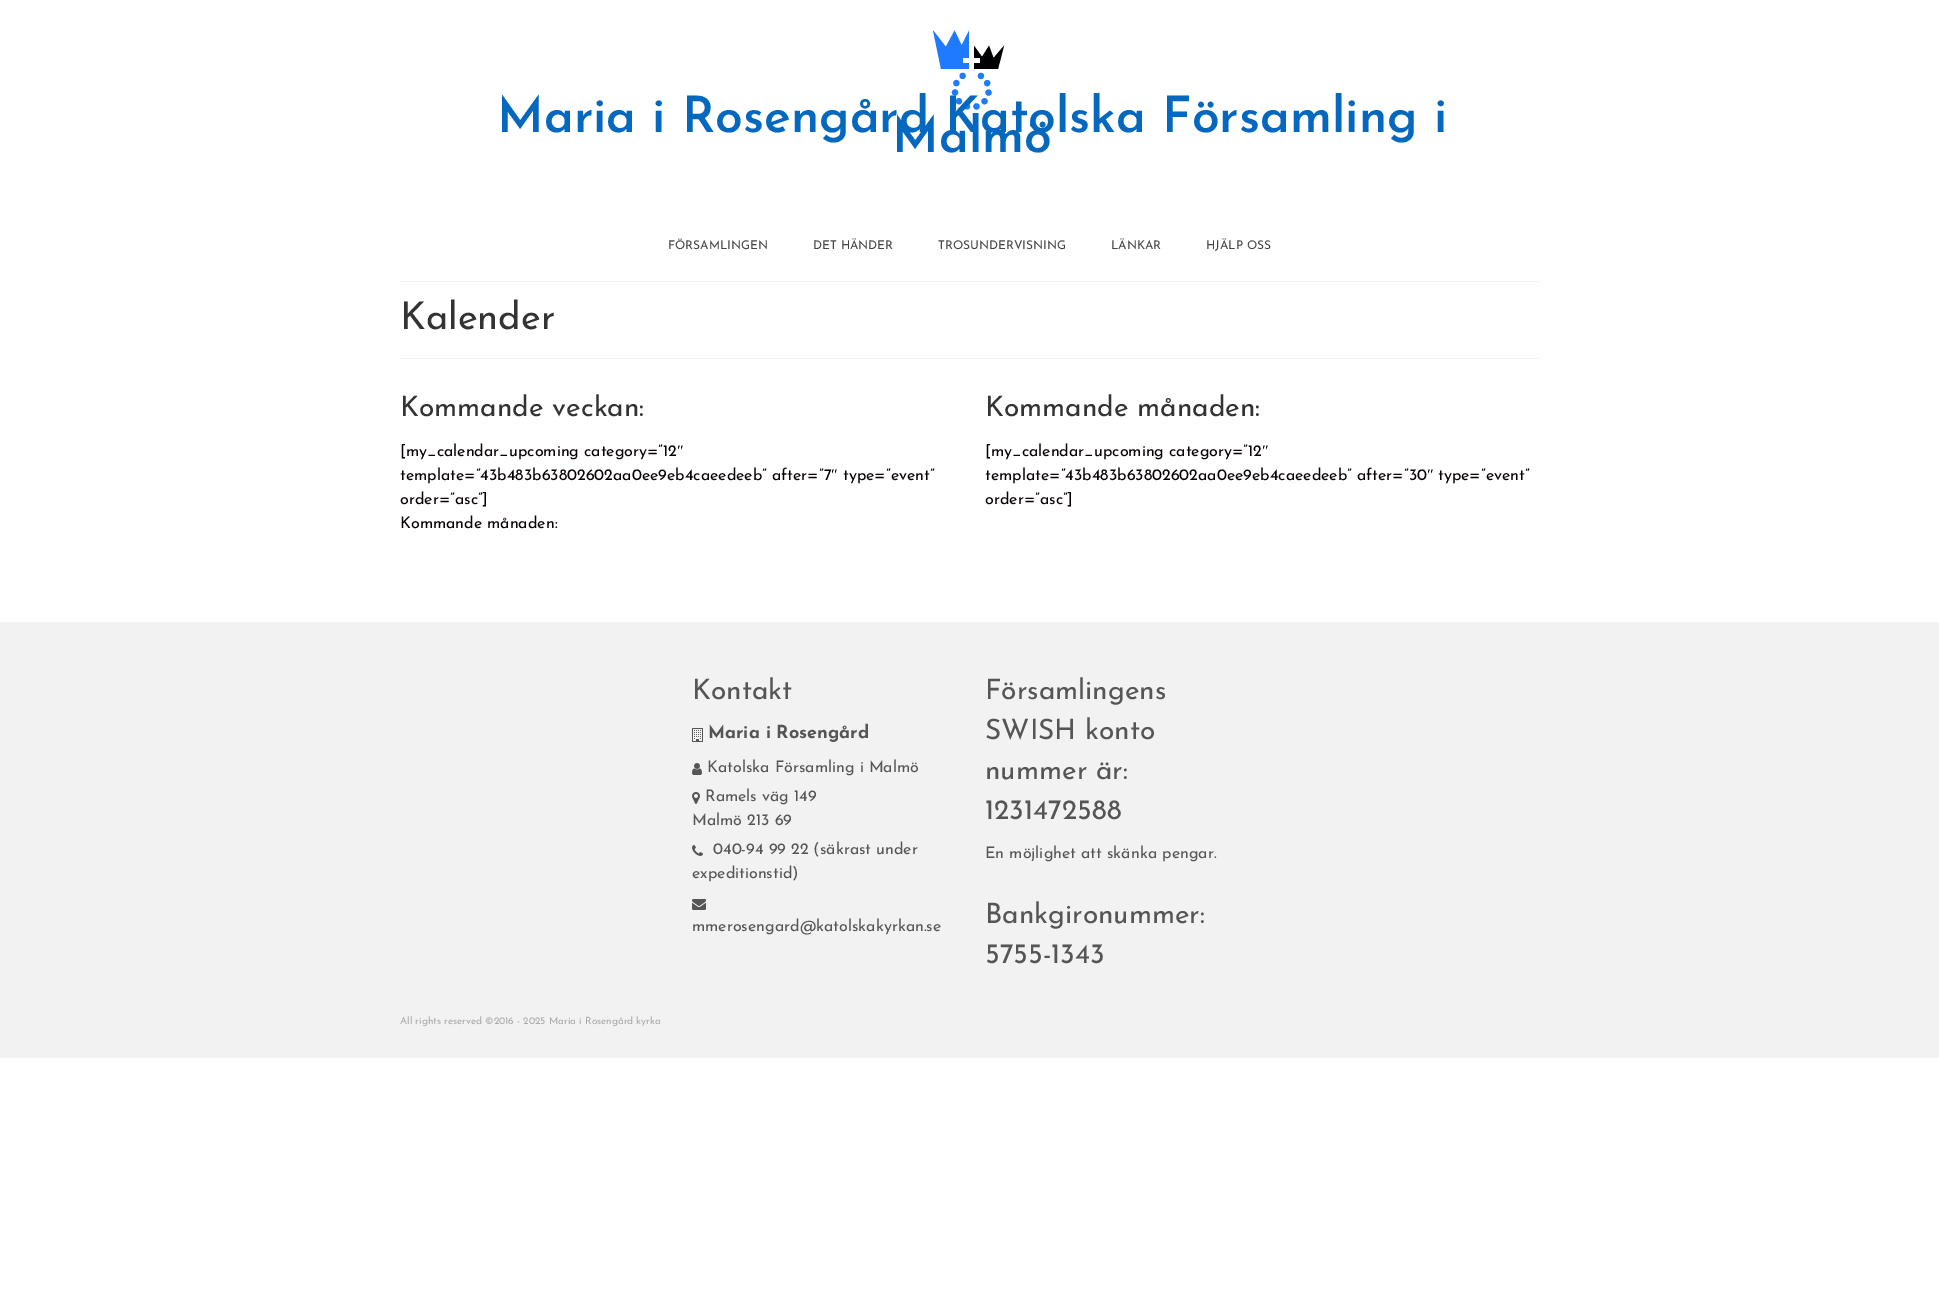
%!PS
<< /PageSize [1939 1303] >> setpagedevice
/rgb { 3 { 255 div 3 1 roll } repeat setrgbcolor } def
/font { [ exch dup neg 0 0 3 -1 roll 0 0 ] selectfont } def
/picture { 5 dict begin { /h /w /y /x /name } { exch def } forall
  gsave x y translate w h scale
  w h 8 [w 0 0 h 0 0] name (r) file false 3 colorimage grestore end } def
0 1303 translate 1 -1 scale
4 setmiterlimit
255 255 255 rgb
0 0 1939 1303 rectfill
(img/1.rgb) 933 30 71 80 picture
[
  [400 281 1140 1 242 242 242]
  [400 358 1140 1 242 242 242]
  [0 622 1939 436 242 242 242]
] { aload pop rgb rectfill } forall
(img/2.rgb) 692 728 11 14 picture
(img/3.rgb) 692 763 10 12 picture
(img/4.rgb) 692 792 8 12 picture
(img/5.rgb) 692 845 11 11 picture
(img/6.rgb) 692 899 14 11 picture
/JosefinSans-SemiBold 50 font
5 104 191 rgb
497 132 moveto (Maria i Rosengård Katolska Församling i) show
892 152 moveto (Malmö) show
/JosefinSans-Regular 12 font
68 68 68 rgb
[
  [(FÖRSAMLINGEN) 668 249]
  [(DET HÄNDER) 813 249]
  [(TROSUNDERVISNING) 938 249]
  [(LÄNKAR) 1111 249]
  [(HJÄLP OSS) 1206 249]
] { aload pop moveto show } forall
/JosefinSans-Regular 38 font
51 51 51 rgb
400 329 moveto (Kalender) show
/JosefinSans-Regular 28 font
400 416 moveto (Kommande veckan:) show
985 416 moveto (Kommande månaden:) show
/JosefinSans-Regular 16 font
7 0 0 rgb
400 456 moveto ([my_calendar_upcoming category=”12) show
/LiberationSerif-Regular 16 font
677 456 moveto (″) show
/JosefinSans-Regular 16 font
400 480 moveto (template=”43b483b63802602aa0ee9eb4caeedeeb” after=”7) show
/LiberationSerif-Regular 16 font
831 480 moveto (″) show
/JosefinSans-Regular 16 font
[
  [(type=”event”) 843 480]
  [(order=”asc”]) 400 504]
  [([my_calendar_upcoming category=”12) 985 456]
] { aload pop moveto show } forall
/LiberationSerif-Regular 16 font
1262 456 moveto (″) show
/JosefinSans-Regular 16 font
985 480 moveto (template=”43b483b63802602aa0ee9eb4caeedeeb” after=”30) show
/LiberationSerif-Regular 16 font
1427 480 moveto (″) show
/JosefinSans-Regular 16 font
[
  [(type=”event”) 1438 480]
  [(order=”asc”]) 985 504]
  [(Kommande månaden:) 400 528]
] { aload pop moveto show } forall
/JosefinSans-Regular 28 font
85 85 85 rgb
692 699 moveto (Kontakt) show
/JosefinSans-Bold 18 font
708 738 moveto (Maria i Rosengård) show
/JosefinSans-Regular 16 font
[
  [(Katolska Församling i Malmö) 707 772]
  [(Ramels väg 149) 705 801]
  [(Malmö 213 69) 692 825]
  [(040-94 99 22 \(säkrast under) 713 854]
  [(expeditionstid\)) 692 878]
  [(mmerosengard@katolskakyrkan.se) 692 931]
] { aload pop moveto show } forall
/JosefinSans-Regular 28 font
[
  [(Församlingens) 985 699]
  [(SWISH konto) 985 739]
  [(nummer är:) 985 779]
  [(1231472588) 985 819]
] { aload pop moveto show } forall
/JosefinSans-Regular 16 font
985 858 moveto (En möjlighet att skänka pengar.) show
/JosefinSans-Regular 28 font
985 923 moveto (Bankgironummer:) show
985 963 moveto (5755-1343) show
/JosefinSans-Regular 10 font
170 170 170 rgb
400 1024 moveto (All rights reserved ©2016 - 2025 Maria i Rosengård kyrka) show
showpage
